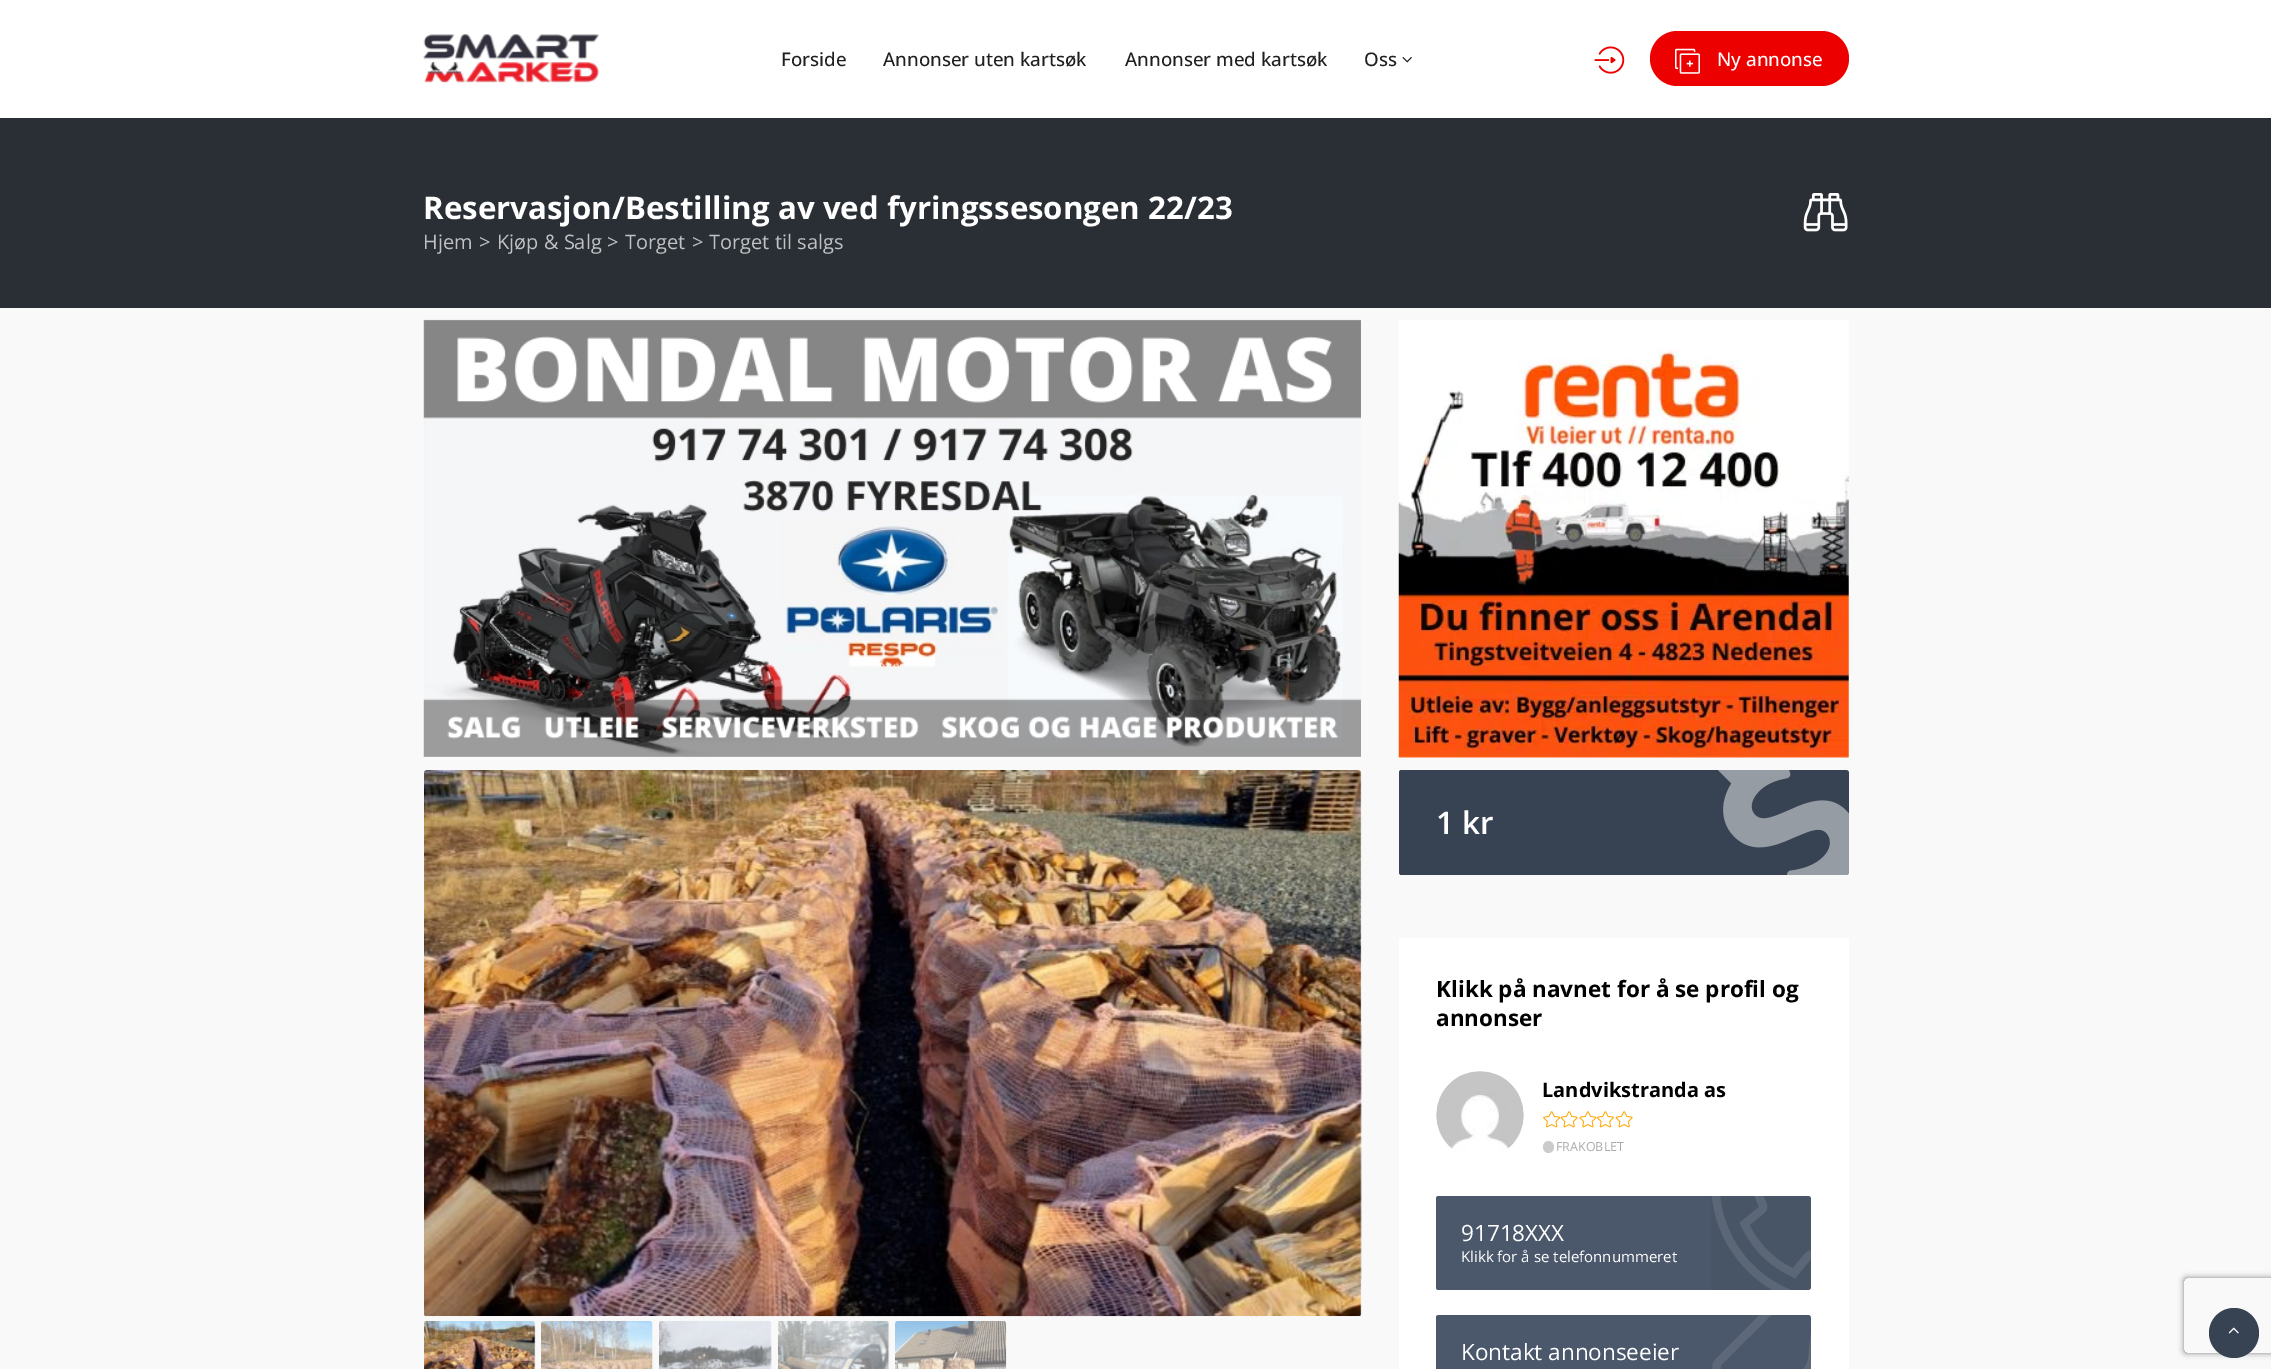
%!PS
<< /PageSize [2271 1369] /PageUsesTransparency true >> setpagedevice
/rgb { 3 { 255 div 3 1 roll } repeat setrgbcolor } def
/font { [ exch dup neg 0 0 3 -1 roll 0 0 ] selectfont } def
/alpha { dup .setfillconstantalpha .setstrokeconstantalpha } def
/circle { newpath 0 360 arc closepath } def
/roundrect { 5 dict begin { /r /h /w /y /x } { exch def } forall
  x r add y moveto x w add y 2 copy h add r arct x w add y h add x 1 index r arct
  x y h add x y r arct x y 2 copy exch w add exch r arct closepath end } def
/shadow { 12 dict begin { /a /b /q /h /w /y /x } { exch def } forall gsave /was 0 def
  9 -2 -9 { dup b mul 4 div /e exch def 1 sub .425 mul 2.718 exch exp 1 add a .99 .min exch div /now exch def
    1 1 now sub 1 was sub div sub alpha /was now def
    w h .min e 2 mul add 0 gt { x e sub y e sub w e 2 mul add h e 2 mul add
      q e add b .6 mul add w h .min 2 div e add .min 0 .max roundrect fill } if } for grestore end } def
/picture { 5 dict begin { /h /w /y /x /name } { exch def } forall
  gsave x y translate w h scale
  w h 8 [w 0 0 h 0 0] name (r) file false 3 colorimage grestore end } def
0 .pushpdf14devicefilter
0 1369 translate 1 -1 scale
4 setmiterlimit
249 249 249 rgb
0 0 2271 1369 rectfill
42 47 54 rgb
0 118 2271 190 rectfill
23 23 23 rgb
0 5 2271 118 0 2.5 0.06 shadow
255 255 255 rgb
0 0 2271 118 rectfill
(img/1.rgb) 423 34 176 49 picture
(img/2.rgb) 1402 57 10 6 picture
(img/3.rgb) 1594 46 31 28 picture
237 0 0 rgb
1650 31 199 55 27.5 roundrect fill
(img/4.rgb) 1675 48 25 26 picture
(img/5.rgb) 1803 193 45 39 picture
(img/6.rgb) 423 319 938 438 picture
(img/7.rgb) 424 770 938 547 picture
(img/8.rgb) 424 1321 112 48 picture
(img/9.rgb) 541 1321 112 48 picture
(img/10.rgb) 659 1321 113 48 picture
(img/11.rgb) 778 1321 112 48 picture
(img/12.rgb) 895 1321 112 48 picture
(img/13.rgb) 1398 320 451 438 picture
55 66 83 rgb
1399 770 450 105 2.5 roundrect fill
(img/14.rgb) 1718 770 131 105 picture
255 255 255 rgb
1399 938 450 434 2.5 roundrect fill
(img/15.rgb) 1436 1071 88 80 picture
(img/16.rgb) 1543 1111 18 17 picture
(img/17.rgb) 1560 1111 18 17 picture
(img/18.rgb) 1579 1111 18 17 picture
(img/19.rgb) 1596 1111 18 17 picture
(img/20.rgb) 1615 1111 18 17 picture
204 204 204 rgb
1543 1141 11 12 5.5 roundrect fill
75 88 107 rgb
1436 1196 375 94 2.5 roundrect fill
0.1 alpha
46 55 68 rgb
1711 1196 moveto 1808.5 1196 lineto 1810 1196 1811 1197 1811 1198.5 curveto 1811 1287.5 lineto 1811 1289 1810 1290 1808.5 1290 curveto 1711 1290 lineto closepath fill
1 alpha
(img/21.rgb) 1711 1196 100 94 picture
75 88 107 rgb
1436 1315 375 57 2.5 roundrect fill
(img/22.rgb) 1712 1315 99 54 picture
gsave
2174 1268 moveto 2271 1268 lineto 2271 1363 lineto 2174 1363 lineto closepath 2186.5 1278 moveto 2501.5 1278 lineto 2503 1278 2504 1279 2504 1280.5 curveto 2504 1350.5 lineto 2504 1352 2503 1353 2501.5 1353 curveto 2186.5 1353 lineto 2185 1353 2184 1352 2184 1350.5 curveto 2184 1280.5 lineto 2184 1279 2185 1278 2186.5 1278 curveto closepath eoclip newpath
128 128 128 rgb
2184 1278 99 75 2.5 3 1 shadow
grestore
55 66 83 rgb
2234 1333 25 circle fill
(img/23.rgb) 2228 1327 11 7 picture
/OpenSans-Medium 18.75 font
32 32 32 rgb
[
  [(Forside) 781 66]
  [(Annonser uten kartsøk) 883 66]
  [(Annonser med kartsøk) 1125 66]
  [(Oss) 1364 66]
] { aload pop moveto show } forall
255 255 255 rgb
1717 66 moveto (Ny annonse) show
/OpenSans-Bold 31.25 font
423 219 moveto (Reservasjon/Bestilling av ved fyringssesongen 22/23) show
/OpenSans-Regular 20 font
191 193 195 rgb
[
  [(Hjem) 423 249]
  [(>) 479 249]
  [(Kjøp & Salg) 497 249]
  [(>) 607 249]
  [(Torget) 625 249]
  [(>) 692 249]
  [(Torget til salgs) 709 249]
] { aload pop moveto show } forall
/OpenSans-SemiBold 31.25 font
255 255 255 rgb
1436 834 moveto (1 kr) show
/OpenSans-Bold 22.5 font
0 0 0 rgb
1436 997 moveto (Klikk på navnet for å se profil og) show
1436 1026 moveto (annonser) show
/OpenSans-Bold 20 font
1542 1097 moveto (Landvikstranda as) show
/OpenSans-Regular 12.5 font
170 170 170 rgb
1556 1151 moveto (FRAKOBLET) show
/OpenSans-Regular 22.5 font
255 255 255 rgb
1461 1241 moveto (91718XXX) show
/OpenSans-Regular 15 font
1461 1262 moveto (Klikk for å se telefonnummeret) show
/OpenSans-Regular 22.5 font
1461 1360 moveto (Kontakt annonseeier) show
.poppdf14devicefilter showpage
